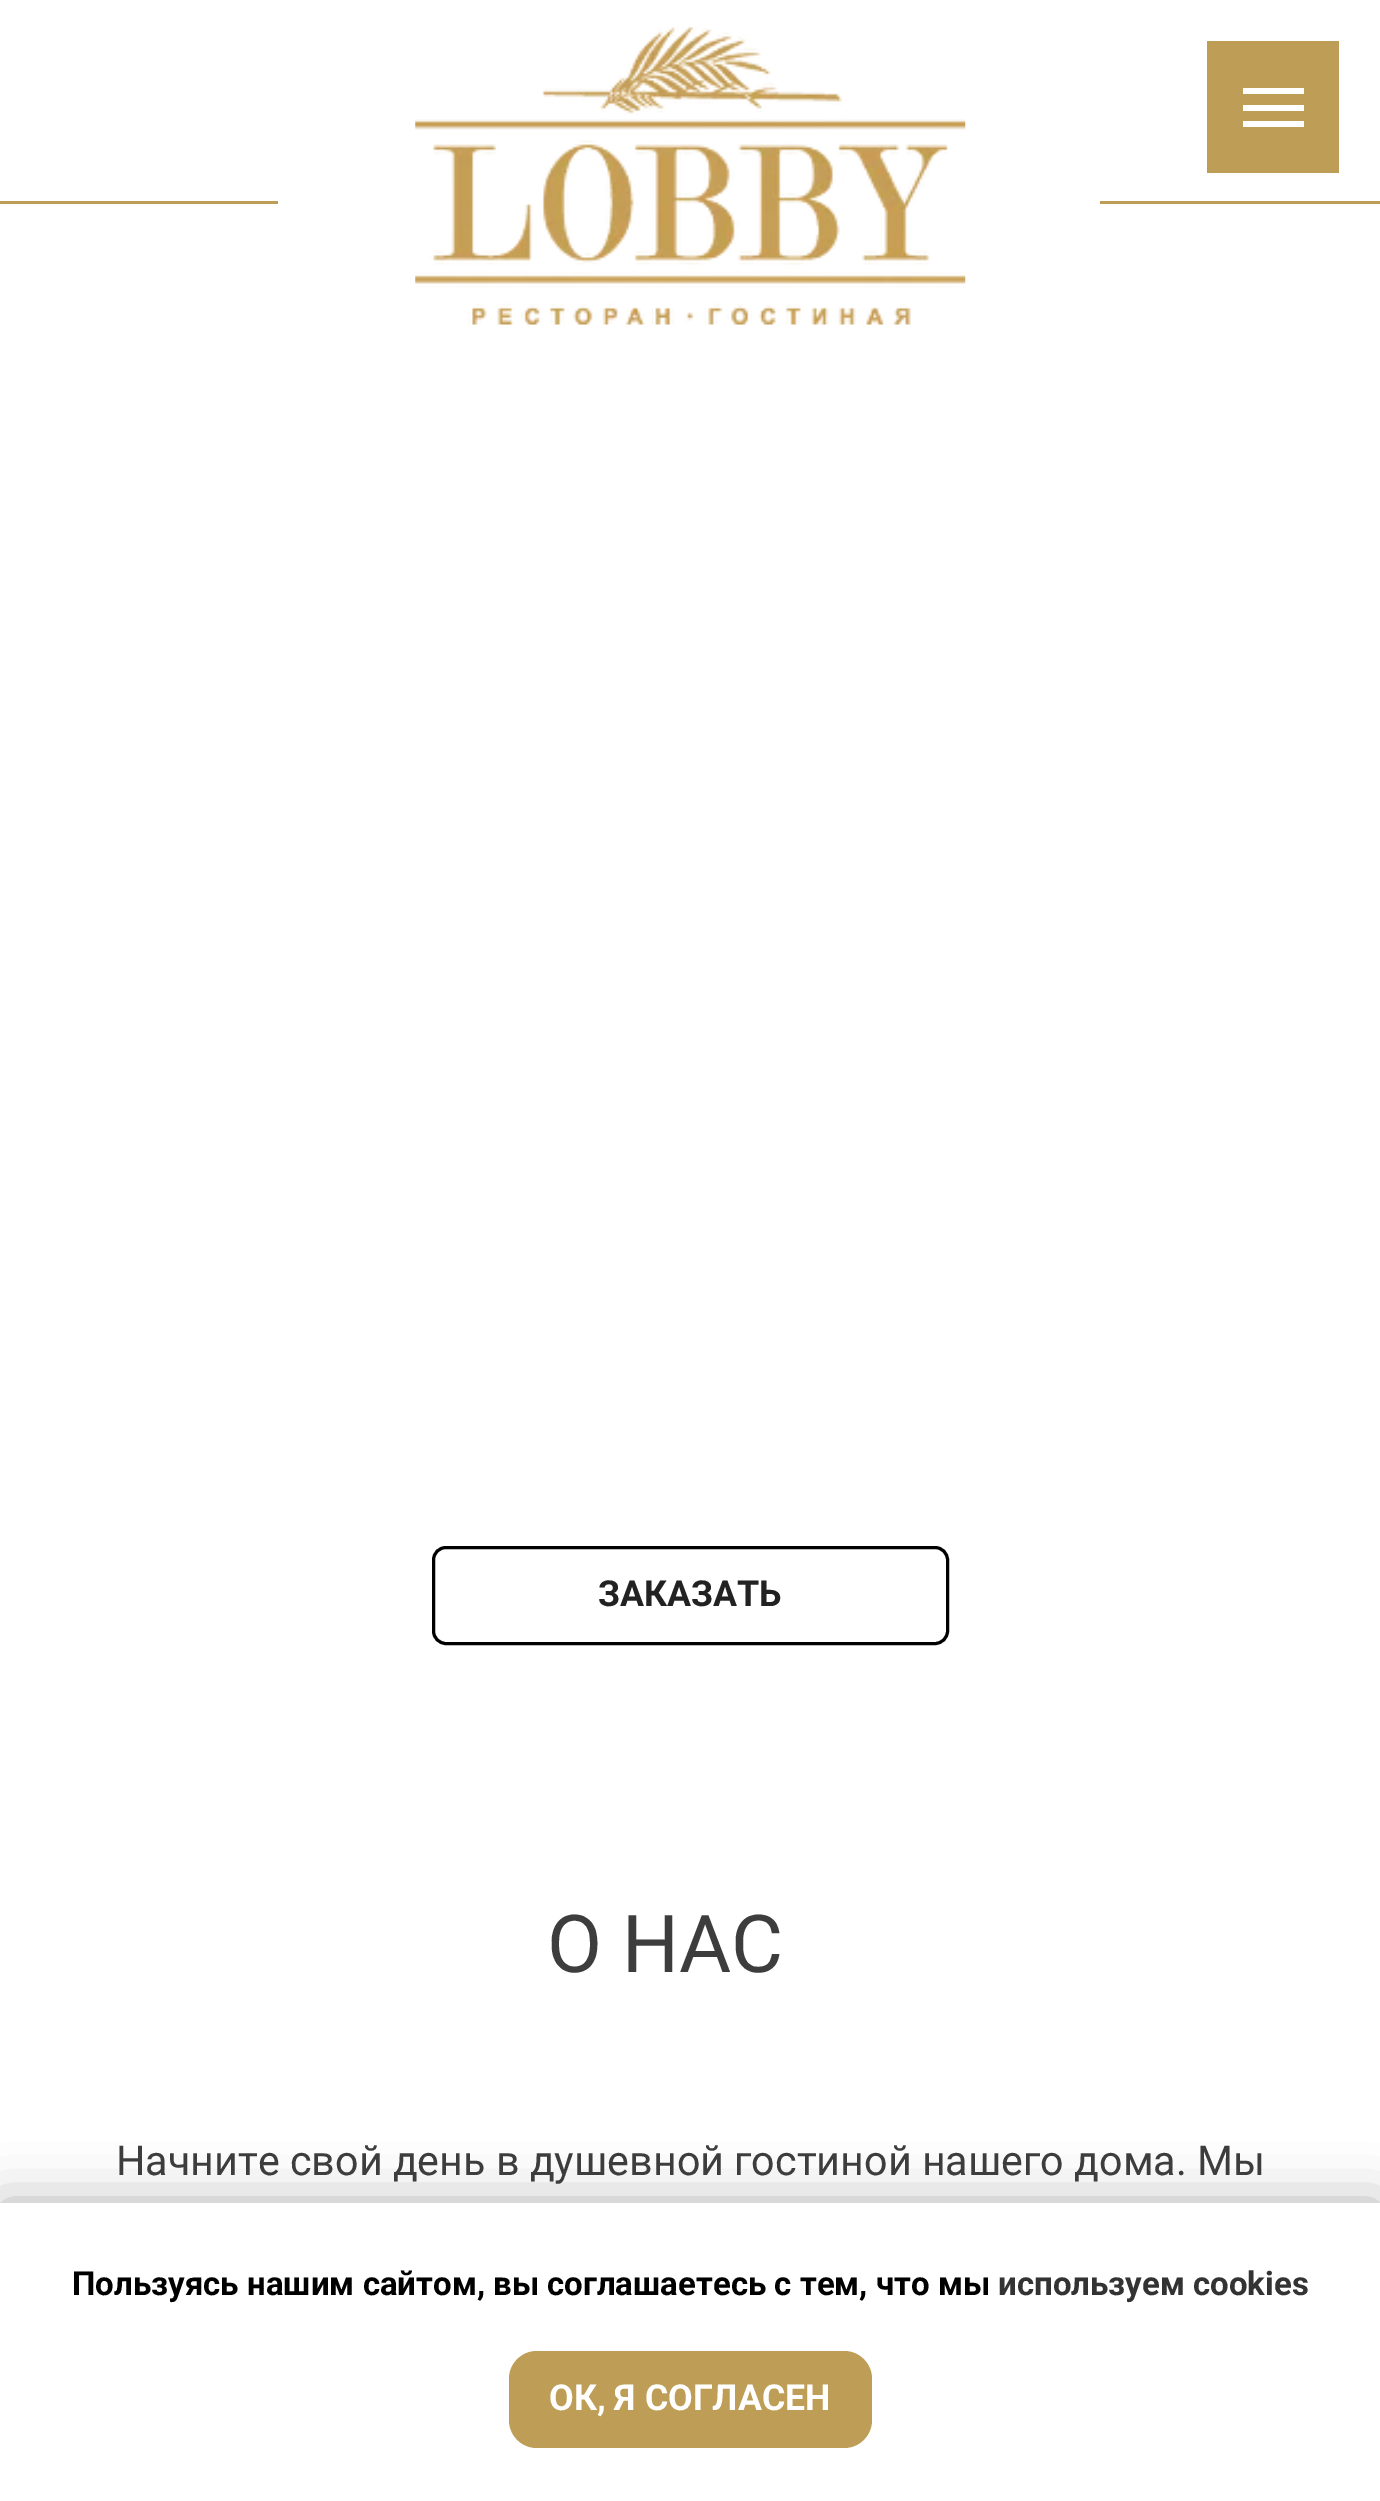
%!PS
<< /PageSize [1380 2501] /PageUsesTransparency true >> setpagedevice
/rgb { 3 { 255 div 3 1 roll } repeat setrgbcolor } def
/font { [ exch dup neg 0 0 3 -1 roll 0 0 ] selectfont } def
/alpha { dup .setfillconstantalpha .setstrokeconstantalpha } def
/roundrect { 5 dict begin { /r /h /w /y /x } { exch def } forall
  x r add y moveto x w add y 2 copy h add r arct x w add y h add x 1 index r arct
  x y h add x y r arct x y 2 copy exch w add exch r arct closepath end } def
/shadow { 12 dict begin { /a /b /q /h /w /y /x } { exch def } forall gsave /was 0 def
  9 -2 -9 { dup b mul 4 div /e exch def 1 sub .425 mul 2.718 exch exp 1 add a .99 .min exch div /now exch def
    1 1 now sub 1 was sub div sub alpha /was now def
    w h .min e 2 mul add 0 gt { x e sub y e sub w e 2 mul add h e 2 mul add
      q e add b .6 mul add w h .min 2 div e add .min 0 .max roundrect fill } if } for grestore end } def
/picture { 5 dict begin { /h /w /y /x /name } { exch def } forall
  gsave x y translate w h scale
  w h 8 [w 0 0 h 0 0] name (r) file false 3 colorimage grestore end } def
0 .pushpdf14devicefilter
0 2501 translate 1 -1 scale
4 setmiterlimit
255 255 255 rgb
0 0 1380 2501 rectfill
190 158 87 rgb
0 201 278 3 rectfill
(img/1.rgb) 415 27 551 298 picture
[
  [1100 201 280 3 190 158 87]
  [1207 41 132 132 190 158 87]
  [1243 88 61 6 255 255 255]
  [1243 105 61 6 255 255 255]
  [1243 121 61 6 255 255 255]
] { aload pop rgb rectfill } forall
0 0 0 rgb
3 setlinewidth
433.5 1547.5 514 96 12.5 roundrect stroke
0 2203 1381 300 0 27.5 0.3 shadow
255 255 255 rgb
0 2203 1380 298 rectfill
190 158 87 rgb
509 2351 363 97 28 roundrect fill
/Roboto-Bold 35.75 font
34 34 34 rgb
598 1606 moveto (ЗАКАЗАТЬ) show
/Roboto-Regular 80 font
61 61 61 rgb
547 1972 moveto (О НАС) show
/Roboto-Regular 41.25 font
116 2175 moveto (Начните свой день в душевной гостиной нашего дома. Мы) show
/Roboto-Bold 33 font
0 0 0 rgb
72 2295 moveto (Пользуясь нашим сайтом, вы соглашаетесь с тем, что мы) show
51 51 51 rgb
998 2295 moveto (используем cookies) show
/Roboto-Bold 35.75 font
255 255 255 rgb
549 2410 moveto (ОК, Я СОГЛАСЕН) show
.poppdf14devicefilter showpage
